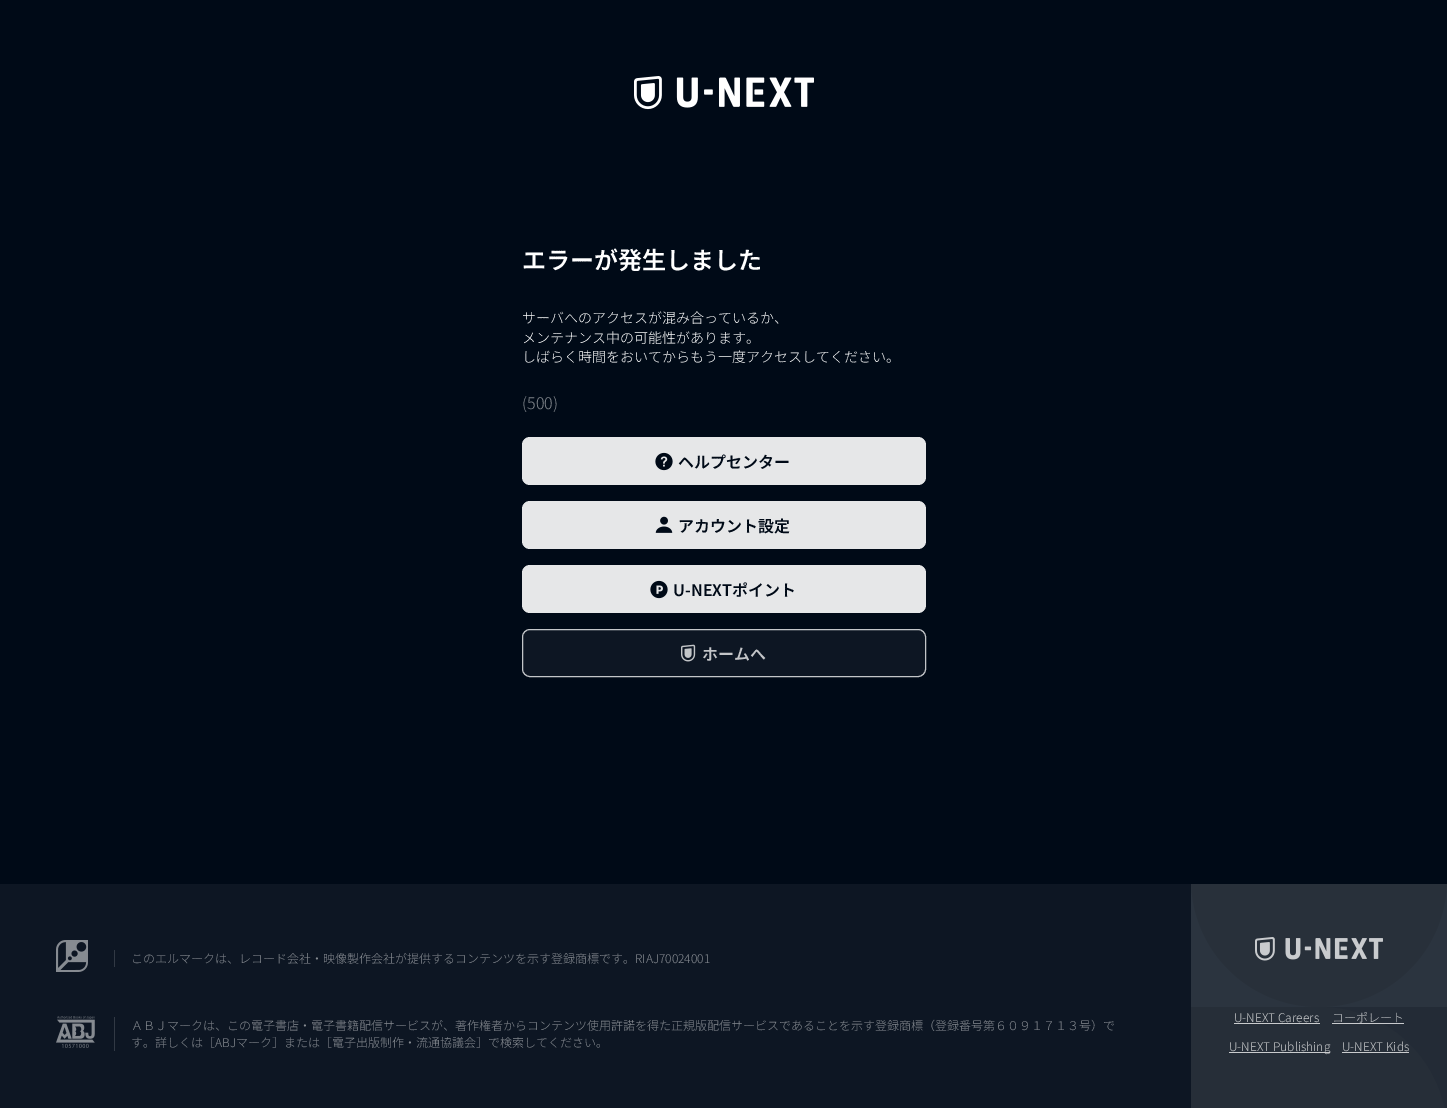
%!PS
<< /PageSize [1447 1108] /PageUsesTransparency true >> setpagedevice
/rgb { 3 { 255 div 3 1 roll } repeat setrgbcolor } def
/font { [ exch dup neg 0 0 3 -1 roll 0 0 ] selectfont } def
/alpha { dup .setfillconstantalpha .setstrokeconstantalpha } def
/roundrect { 5 dict begin { /r /h /w /y /x } { exch def } forall
  x r add y moveto x w add y 2 copy h add r arct x w add y h add x 1 index r arct
  x y h add x y r arct x y 2 copy exch w add exch r arct closepath end } def
/picture { 5 dict begin { /h /w /y /x /name } { exch def } forall
  gsave x y translate w h scale
  w h 8 [w 0 0 h 0 0] name (r) file false 3 colorimage grestore end } def
0 .pushpdf14devicefilter
0 1108 translate 1 -1 scale
4 setmiterlimit
0 10 23 rgb
0 0 1447 1108 rectfill
(img/1.rgb) 634 76 180 34 picture
230 231 232 rgb
522 437 404 48 8 roundrect fill
(img/2.rgb) 655 452 18 19 picture
522 501 404 48 8 roundrect fill
(img/3.rgb) 655 516 18 17 picture
522 565 404 48 8 roundrect fill
(img/4.rgb) 650 580 18 19 picture
13 22 35 rgb
522 629 404 48 8 roundrect fill
0.75 alpha
255 255 255 rgb
522.5 629.5 403 47 7.5 roundrect stroke
1 alpha
(img/5.rgb) 681 644 15 18 picture
13 22 35 rgb
0 884 1191 224 rectfill
(img/6.rgb) 56 940 32 32 picture
49 57 68 rgb
114 950 1 17 rectfill
(img/7.rgb) 56 1016 39 32 picture
114 1017 1 34 rectfill
35 43 54 rgb
1320 1007 127 101 rectfill
38 46 56 rgb
1447 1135 moveto 1447 1064 1390 1007 1319 1007 curveto 1191 1007 lineto 1191 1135 lineto closepath eofill
43 52 63 rgb
1191 884 256 123 rectfill
gsave
1191 884 256 224 rectclip
40 48 58 rgb
1319 1007 moveto 1248 1007 1191 950 1191 879 curveto 1447 879 lineto 1447 950 1390 1007 1319 1007 curveto closepath eofill
grestore
(img/8.rgb) 1255 937 128 24 picture
[
  [1234 1023 86 1 201 203 205]
] { aload pop rgb rectfill } forall
0.75 alpha
[
  [1332 1023 72 1 255 255 255]
] { aload pop rgb rectfill } forall
1 alpha
[
  [1229 1052 101 1 201 203 205]
  [1342 1052 67 1 201 203 205]
] { aload pop rgb rectfill } forall
/NotoSansJP-SemiBold 24 font
255 255 255 rgb
522 269 moveto (エラーが発生しました) show
/NotoSansJP-Light 14 font
[
  [(サーバへのアクセスが混み合っているか、) 522 323]
  [(メンテナンス中の可能性があります。) 522 343]
  [(しばらく時間をおいてからもう一度アクセスしてください。) 522 362]
] { aload pop moveto show } forall
/NotoSansJP-Light 16 font
128 133 139 rgb
522 409 moveto (\(500\)) show
/NotoSansJP-SemiBold 16 font
0 10 23 rgb
[
  [(ヘルプセンター) 678 468]
  [(アカウント設定) 678 532]
  [(U-NEXTポイント) 673 596]
] { aload pop moveto show } forall
195 197 200 rgb
702 660 moveto (ホームへ) show
/NotoSansJP-Light 12 font
134 139 145 rgb
[
  [(このエルマークは、レコード会社・映像製作会社が提供するコンテンツを示す登録商標です。RIAJ70024001) 131 963]
  [(ＡＢＪマークは、この電子書店・電子書籍配信サービスが、著作権者からコンテンツ使用許諾を得た正規版配信サービスであることを示す登録商標（登録番号第６０９１７１３号）で) 131 1030]
  [(す。詳しくは［ABJマーク］または［電子出版制作・流通協議会］で検索してください。) 131 1047]
] { aload pop moveto show } forall
201 203 205 rgb
1234 1022 moveto (U-NEXT Careers) show
195 197 200 rgb
1332 1022 moveto (コーポレート) show
201 203 205 rgb
1229 1051 moveto (U-NEXT Publishing) show
1342 1051 moveto (U-NEXT Kids) show
.poppdf14devicefilter showpage
